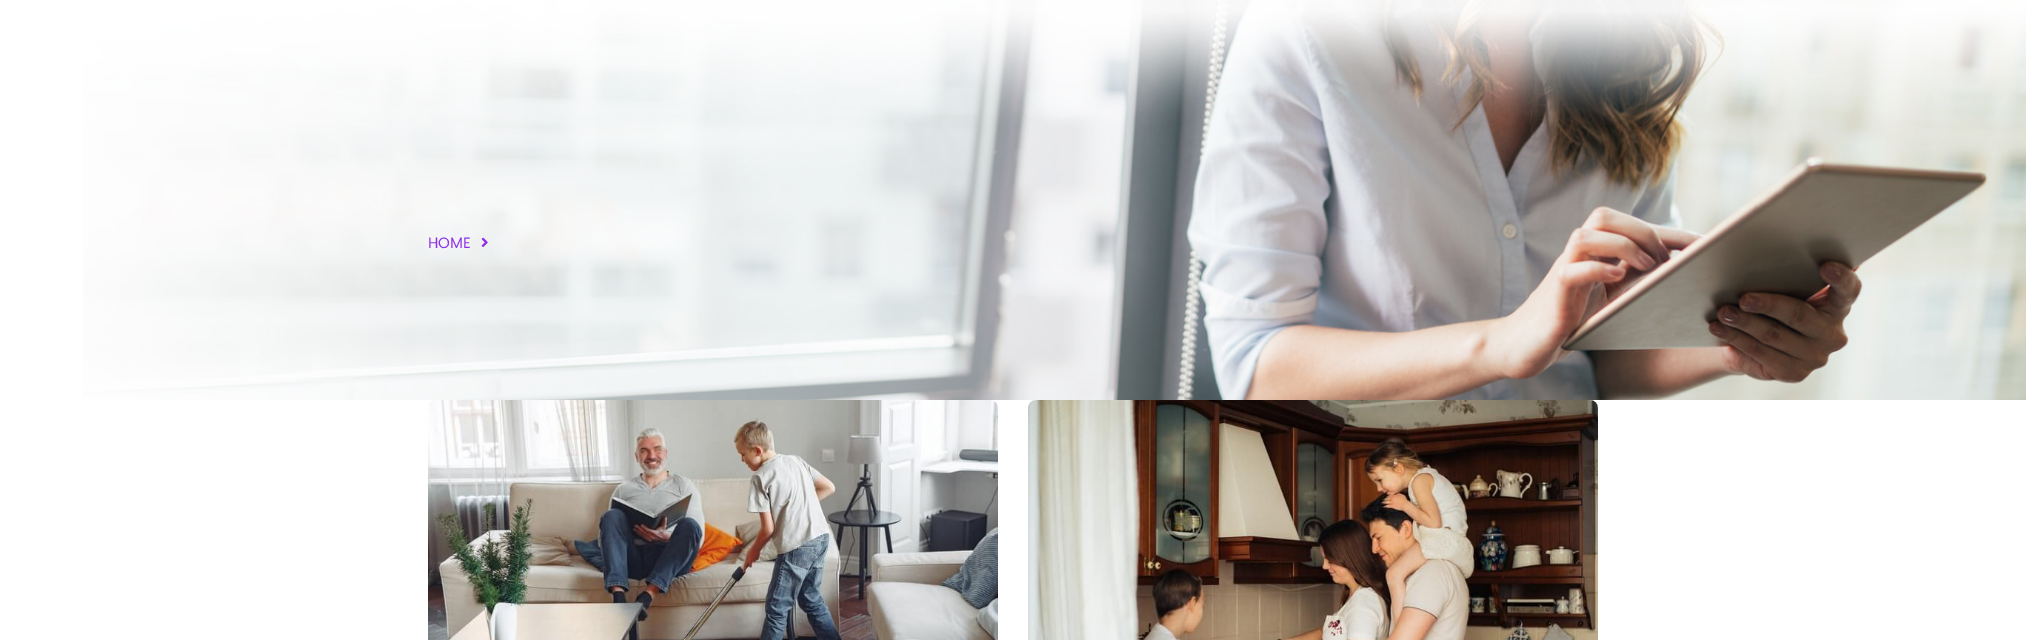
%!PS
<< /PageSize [2026 640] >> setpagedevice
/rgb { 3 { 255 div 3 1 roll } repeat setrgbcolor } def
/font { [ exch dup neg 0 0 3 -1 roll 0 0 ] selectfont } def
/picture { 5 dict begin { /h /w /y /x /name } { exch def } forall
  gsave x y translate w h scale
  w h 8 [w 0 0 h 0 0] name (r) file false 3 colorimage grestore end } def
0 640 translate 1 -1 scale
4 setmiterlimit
255 255 255 rgb
0 0 2026 640 rectfill
(img/1.rgb) 83 0 1943 400 picture
(img/2.rgb) 481 237 7 10 picture
(img/3.rgb) 428 400 570 240 picture
(img/4.rgb) 1028 400 570 240 picture
/Poppins-Regular 15 font
142 48 235 rgb
428 248 moveto (HOME) show
showpage
